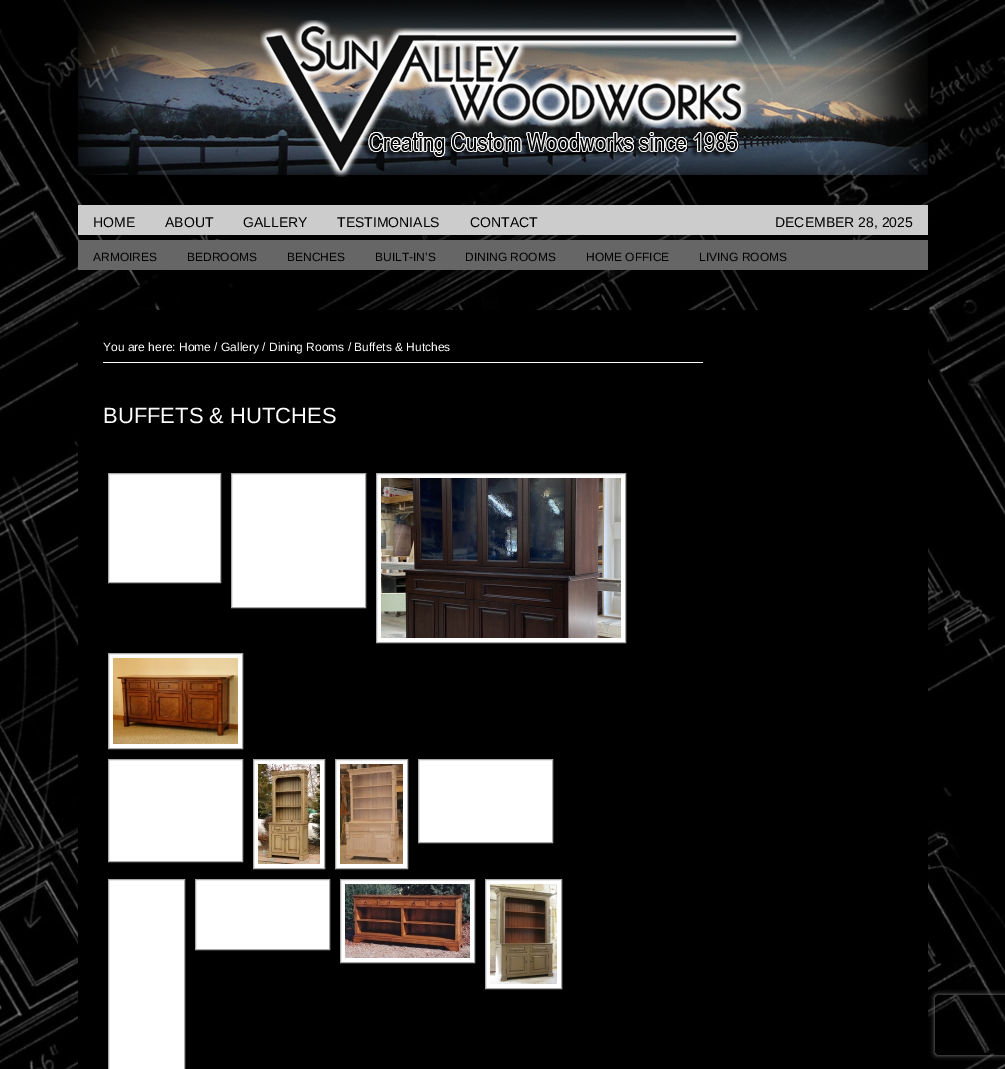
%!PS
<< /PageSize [1005 1069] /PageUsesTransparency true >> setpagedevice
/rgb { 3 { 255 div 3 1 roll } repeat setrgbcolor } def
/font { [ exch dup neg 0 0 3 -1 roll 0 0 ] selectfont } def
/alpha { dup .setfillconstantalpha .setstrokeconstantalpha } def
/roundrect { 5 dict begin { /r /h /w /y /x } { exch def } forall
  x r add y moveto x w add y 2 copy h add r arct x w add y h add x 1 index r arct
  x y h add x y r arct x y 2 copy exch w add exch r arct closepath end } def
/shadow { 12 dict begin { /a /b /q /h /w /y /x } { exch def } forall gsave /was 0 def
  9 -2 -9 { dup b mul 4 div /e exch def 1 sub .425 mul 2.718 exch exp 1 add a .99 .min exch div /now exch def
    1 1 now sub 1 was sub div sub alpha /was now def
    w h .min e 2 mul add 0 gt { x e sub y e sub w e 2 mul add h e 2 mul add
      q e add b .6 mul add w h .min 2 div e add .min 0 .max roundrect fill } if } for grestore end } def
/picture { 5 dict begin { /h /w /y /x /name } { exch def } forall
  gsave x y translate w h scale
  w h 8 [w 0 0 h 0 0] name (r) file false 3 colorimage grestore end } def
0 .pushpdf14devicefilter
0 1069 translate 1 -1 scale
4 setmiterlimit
255 255 255 rgb
0 0 1005 1069 rectfill
(img/1.rgb) 0 0 1005 1069 picture
(img/2.rgb) 78 0 850 175 picture
(img/3.rgb) 260 20 488 157 picture
(img/4.rgb) 260 20 488 157 picture
(img/5.rgb) 260 20 488 157 picture
[
  [78 205 850 30 204 204 204]
  [78 240 850 30 102 102 102]
  [78 310 850 759 0 0 0]
  [103 362 600 1 255 255 255]
] { aload pop rgb rectfill } forall
108.5 473.5 moveto 220.5 473.5 lineto 220.5 582.5 lineto 108.5 582.5 lineto closepath gsave fill grestore
169 169 169 rgb
stroke
255 255 255 rgb
231.5 473.5 moveto 365.5 473.5 lineto 365.5 607.5 lineto 231.5 607.5 lineto closepath gsave fill grestore
169 169 169 rgb
stroke
255 255 255 rgb
376.5 473.5 moveto 625.5 473.5 lineto 625.5 642.5 lineto 376.5 642.5 lineto closepath gsave fill grestore
169 169 169 rgb
stroke
(img/6.rgb) 381 478 240 160 picture
255 255 255 rgb
108.5 653.5 moveto 242.5 653.5 lineto 242.5 748.5 lineto 108.5 748.5 lineto closepath gsave fill grestore
169 169 169 rgb
stroke
(img/7.rgb) 113 658 125 86 picture
255 255 255 rgb
108.5 759.5 moveto 242.5 759.5 lineto 242.5 861.5 lineto 108.5 861.5 lineto closepath gsave fill grestore
169 169 169 rgb
stroke
255 255 255 rgb
253.5 759.5 moveto 324.5 759.5 lineto 324.5 868.5 lineto 253.5 868.5 lineto closepath gsave fill grestore
169 169 169 rgb
stroke
(img/8.rgb) 258 764 62 100 picture
255 255 255 rgb
335.5 759.5 moveto 407.5 759.5 lineto 407.5 868.5 lineto 335.5 868.5 lineto closepath gsave fill grestore
169 169 169 rgb
stroke
(img/9.rgb) 340 764 63 100 picture
255 255 255 rgb
418.5 759.5 moveto 552.5 759.5 lineto 552.5 842.5 lineto 418.5 842.5 lineto closepath gsave fill grestore
169 169 169 rgb
stroke
255 255 255 rgb
108.5 879.5 moveto 184.5 879.5 lineto 184.5 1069.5 lineto 108.5 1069.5 lineto closepath gsave fill grestore
169 169 169 rgb
stroke
255 255 255 rgb
195.5 879.5 moveto 329.5 879.5 lineto 329.5 949.5 lineto 195.5 949.5 lineto closepath gsave fill grestore
169 169 169 rgb
stroke
255 255 255 rgb
340.5 879.5 moveto 474.5 879.5 lineto 474.5 962.5 lineto 340.5 962.5 lineto closepath gsave fill grestore
169 169 169 rgb
stroke
(img/10.rgb) 345 884 125 74 picture
255 255 255 rgb
485.5 879.5 moveto 561.5 879.5 lineto 561.5 988.5 lineto 485.5 988.5 lineto closepath gsave fill grestore
169 169 169 rgb
stroke
(img/11.rgb) 490 884 67 100 picture
gsave
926 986 moveto 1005 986 lineto 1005 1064 lineto 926 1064 lineto closepath 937 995 moveto 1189 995 lineto 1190 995 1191 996 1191 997 curveto 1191 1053 lineto 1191 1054 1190 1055 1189 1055 curveto 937 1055 lineto 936 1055 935 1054 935 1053 curveto 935 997 lineto 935 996 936 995 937 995 curveto closepath eoclip newpath
128 128 128 rgb
935 995 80 60 2 2.5 1 shadow
grestore
/LiberationSans-Regular 14 font
0 0 0 rgb
[
  [(HOME) 93 227]
  [(ABOUT) 165 227]
  [(GALLERY) 243 227]
  [(TESTIMONIALS) 337 227]
  [(CONTACT) 470 227]
  [(DECEMBER 28, 2025) 775 227]
] { aload pop moveto show } forall
/LiberationSans-Regular 12 font
[
  [(ARMOIRES) 93 261]
  [(BEDROOMS) 187 261]
  [(BENCHES) 287 261]
  [(BUILT-IN’S) 375 261]
  [(DINING ROOMS) 465 261]
  [(HOME OFFICE) 586 261]
  [(LIVING ROOMS) 699 261]
] { aload pop moveto show } forall
255 255 255 rgb
103 351 moveto (You are here: Home / Gallery / Dining Rooms / Buffets & Hutches) show
/LiberationSans-Regular 22 font
103 423 moveto (BUFFETS & HUTCHES) show
.poppdf14devicefilter showpage
